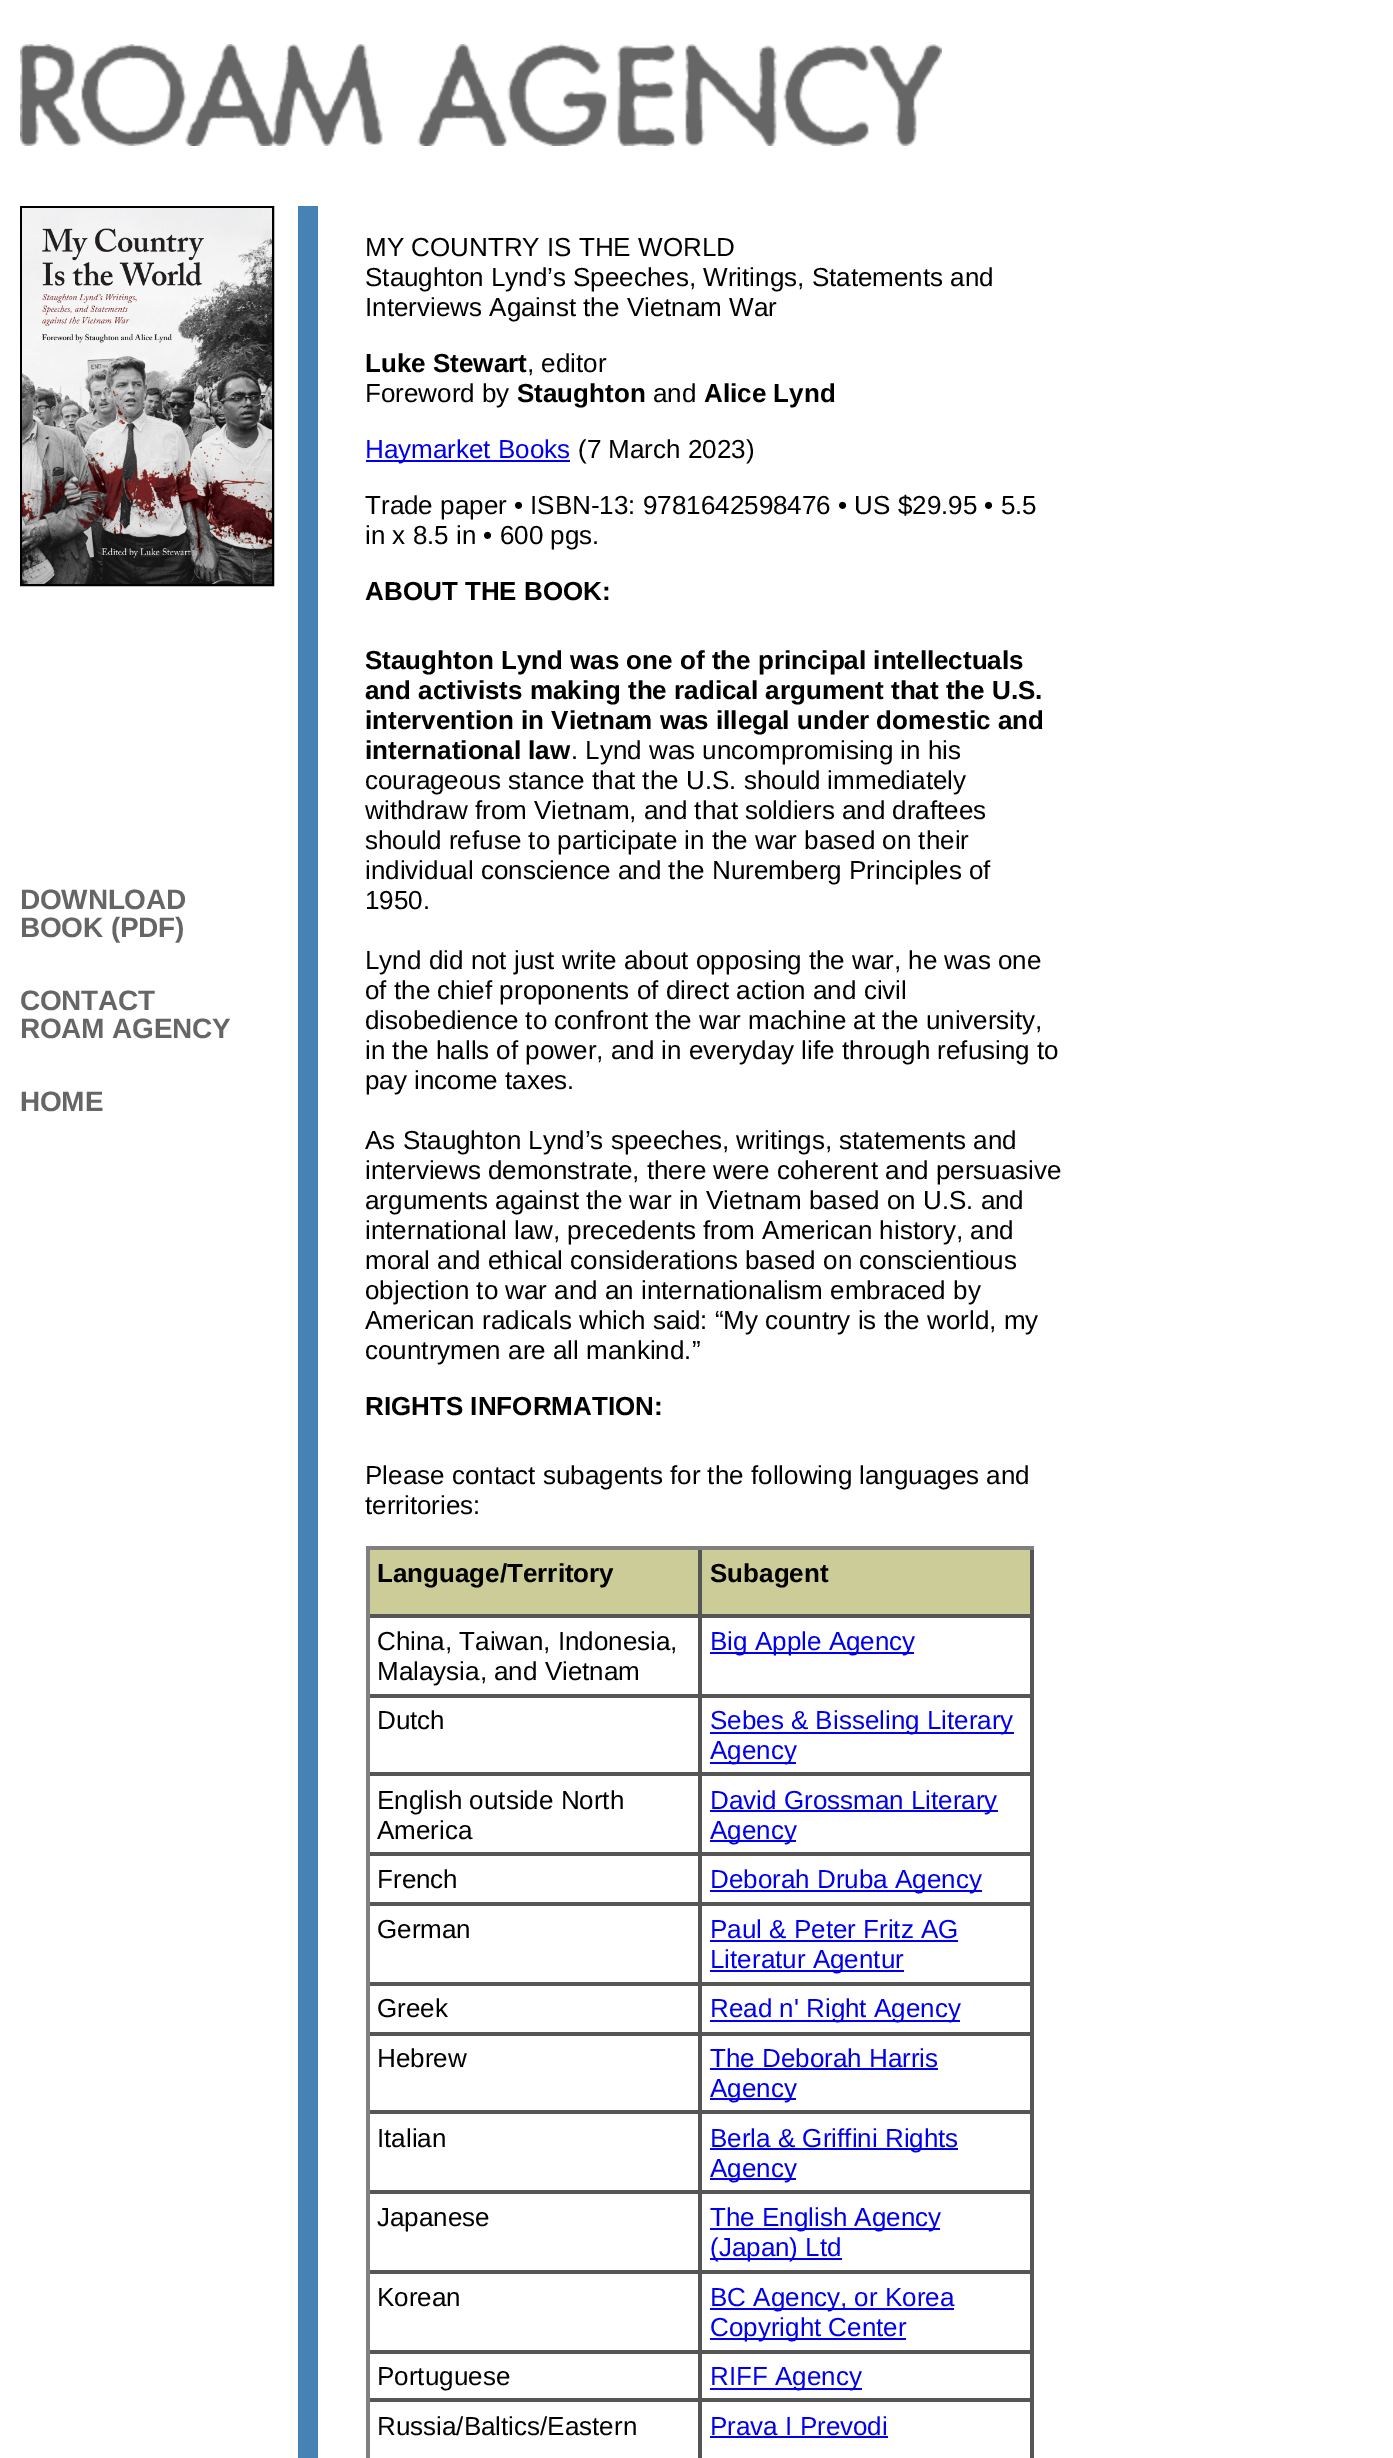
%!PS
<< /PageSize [1393 2458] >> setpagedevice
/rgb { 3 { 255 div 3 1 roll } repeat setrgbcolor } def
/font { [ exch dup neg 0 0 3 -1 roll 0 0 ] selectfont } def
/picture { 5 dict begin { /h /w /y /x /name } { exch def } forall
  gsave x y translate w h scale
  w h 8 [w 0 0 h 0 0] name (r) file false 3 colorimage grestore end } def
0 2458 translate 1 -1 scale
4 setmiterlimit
255 255 255 rgb
0 0 1393 2458 rectfill
(img/1.rgb) 20 44 922 102 picture
0 0 0 rgb
2 setlinewidth
21 207 252 378 rectstroke
(img/2.rgb) 22 208 250 376 picture
[
  [298 206 20 2252 70 130 180]
  [366 460 204 2 0 0 238]
  [366 1546 668 4 128 128 128]
  [366 1546 4 912 128 128 128]
  [370 1550 328 64 204 204 153]
  [698 1550 4 908 85 85 85]
  [370 1614 332 4 85 85 85]
  [702 1550 328 64 204 204 153]
  [1030 1550 4 908 85 85 85]
  [702 1614 332 4 85 85 85]
  [370 1694 664 4 85 85 85]
  [710 1652 204 2 0 0 238]
  [370 1772 664 4 85 85 85]
  [710 1732 304 2 0 0 238]
  [710 1762 86 2 0 0 238]
  [370 1852 664 4 85 85 85]
  [710 1810 288 2 0 0 238]
  [710 1840 86 2 0 0 238]
  [370 1902 664 4 85 85 85]
  [710 1890 272 2 0 0 238]
  [370 1982 664 4 85 85 85]
  [710 1940 248 2 0 0 238]
  [710 1970 194 2 0 0 238]
  [370 2032 664 4 85 85 85]
  [710 2020 250 2 0 0 238]
  [370 2110 664 4 85 85 85]
  [710 2068 228 2 0 0 238]
  [710 2098 86 2 0 0 238]
  [370 2190 664 4 85 85 85]
  [710 2148 248 2 0 0 238]
  [710 2178 86 2 0 0 238]
  [370 2270 664 4 85 85 85]
  [710 2228 230 2 0 0 238]
  [710 2258 132 2 0 0 238]
  [370 2350 664 4 85 85 85]
  [710 2308 244 2 0 0 238]
  [710 2338 196 2 0 0 238]
  [370 2398 664 4 85 85 85]
  [710 2388 152 2 0 0 238]
  [710 2436 178 2 0 0 238]
] { aload pop rgb rectfill } forall
/LiberationSans-Bold 28 font
102 102 102 rgb
20 909 moveto -0.25 0 (DOWNLOAD) ashow
20 937 moveto -0.25 0 (BOOK \(PDF\)) ashow
20 1010 moveto -0.25 0 (CONTACT) ashow
20 1038 moveto -0.25 0 (ROAM AGENCY) ashow
20 1111 moveto -0.25 0 (HOME) ashow
/LiberationSans-Regular 26 font
0 0 0 rgb
[
  [(MY COUNTRY IS THE WORLD) 365 256]
  [(Staughton Lynd’s Speeches, Writings, Statements and) 365 286]
  [(Interviews Against the Vietnam War) 365 316]
] { aload pop moveto show } forall
/LiberationSans-Bold 26 font
365 372 moveto (Luke Stewart) show
/LiberationSans-Regular 26 font
527 372 moveto (, editor) show
365 402 moveto (Foreword by) show
/LiberationSans-Bold 26 font
517 402 moveto (Staughton) show
/LiberationSans-Regular 26 font
653 402 moveto (and) show
/LiberationSans-Bold 26 font
704 402 moveto (Alice Lynd) show
/LiberationSans-Regular 26 font
0 0 238 rgb
365 458 moveto (Haymarket Books) show
0 0 0 rgb
[
  [(\(7 March 2023\)) 578 458]
  [(Trade paper • ISBN-13: 9781642598476 • US $29.95 • 5.5) 365 514]
  [(in x 8.5 in • 600 pgs.) 365 544]
] { aload pop moveto show } forall
/LiberationSans-Bold 26 font
[
  [(ABOUT THE BOOK:) 365 600]
  [(Staughton Lynd was one of the principal intellectuals) 365 669]
  [(and activists making the radical argument that the U.S.) 365 699]
  [(intervention in Vietnam was illegal under domestic and) 365 729]
  [(international law) 365 759]
] { aload pop moveto show } forall
/LiberationSans-Regular 26 font
[
  [(. Lynd was uncompromising in his) 571 759]
  [(courageous stance that the U.S. should immediately) 365 789]
  [(withdraw from Vietnam, and that soldiers and draftees) 365 819]
  [(should refuse to participate in the war based on their) 365 849]
  [(individual conscience and the Nuremberg Principles of) 365 879]
  [(1950.) 365 909]
  [(Lynd did not just write about opposing the war, he was one) 365 969]
  [(of the chief proponents of direct action and civil) 365 999]
  [(disobedience to confront the war machine at the university,) 365 1029]
  [(in the halls of power, and in everyday life through refusing to) 365 1059]
  [(pay income taxes.) 365 1089]
  [(As Staughton Lynd’s speeches, writings, statements and) 365 1149]
  [(interviews demonstrate, there were coherent and persuasive) 365 1179]
  [(arguments against the war in Vietnam based on U.S. and) 365 1209]
  [(international law, precedents from American history, and) 365 1239]
  [(moral and ethical considerations based on conscientious) 365 1269]
  [(objection to war and an internationalism embraced by) 365 1299]
  [(American radicals which said: “My country is the world, my) 365 1329]
  [(countrymen are all mankind.”) 365 1359]
] { aload pop moveto show } forall
/LiberationSans-Bold 26 font
365 1415 moveto (RIGHTS INFORMATION:) show
/LiberationSans-Regular 26 font
365 1484 moveto (Please contact subagents for the following languages and) show
365 1514 moveto (territories:) show
/LiberationSans-Bold 26 font
377 1582 moveto (Language/Territory) show
710 1582 moveto (Subagent) show
/LiberationSans-Regular 26 font
377 1650 moveto (China, Taiwan, Indonesia,) show
377 1680 moveto (Malaysia, and Vietnam) show
0 0 238 rgb
710 1650 moveto (Big Apple Agency) show
0 0 0 rgb
377 1729 moveto (Dutch) show
0 0 238 rgb
710 1729 moveto (Sebes & Bisseling Literary) show
710 1759 moveto (Agency) show
0 0 0 rgb
377 1809 moveto (English outside North) show
377 1839 moveto (America) show
0 0 238 rgb
710 1809 moveto (David Grossman Literary) show
710 1839 moveto (Agency) show
0 0 0 rgb
377 1888 moveto (French) show
0 0 238 rgb
710 1888 moveto (Deborah Druba Agency) show
0 0 0 rgb
377 1938 moveto (German) show
0 0 238 rgb
710 1938 moveto (Paul & Peter Fritz AG) show
710 1968 moveto (Literatur Agentur) show
0 0 0 rgb
377 2017 moveto (Greek) show
0 0 238 rgb
710 2017 moveto (Read n' Right Agency) show
0 0 0 rgb
377 2067 moveto (Hebrew) show
0 0 238 rgb
710 2067 moveto (The Deborah Harris) show
710 2097 moveto (Agency) show
0 0 0 rgb
377 2147 moveto (Italian) show
0 0 238 rgb
710 2147 moveto (Berla & Griffini Rights) show
710 2177 moveto (Agency) show
0 0 0 rgb
377 2226 moveto (Japanese) show
0 0 238 rgb
710 2226 moveto (The English Agency) show
710 2256 moveto (\(Japan\) Ltd) show
0 0 0 rgb
377 2306 moveto (Korean) show
0 0 238 rgb
710 2306 moveto (BC Agency, or Korea) show
710 2336 moveto (Copyright Center) show
0 0 0 rgb
377 2385 moveto (Portuguese) show
0 0 238 rgb
710 2385 moveto (RIFF Agency) show
0 0 0 rgb
377 2435 moveto (Russia/Baltics/Eastern) show
0 0 238 rgb
710 2435 moveto (Prava I Prevodi) show
showpage
